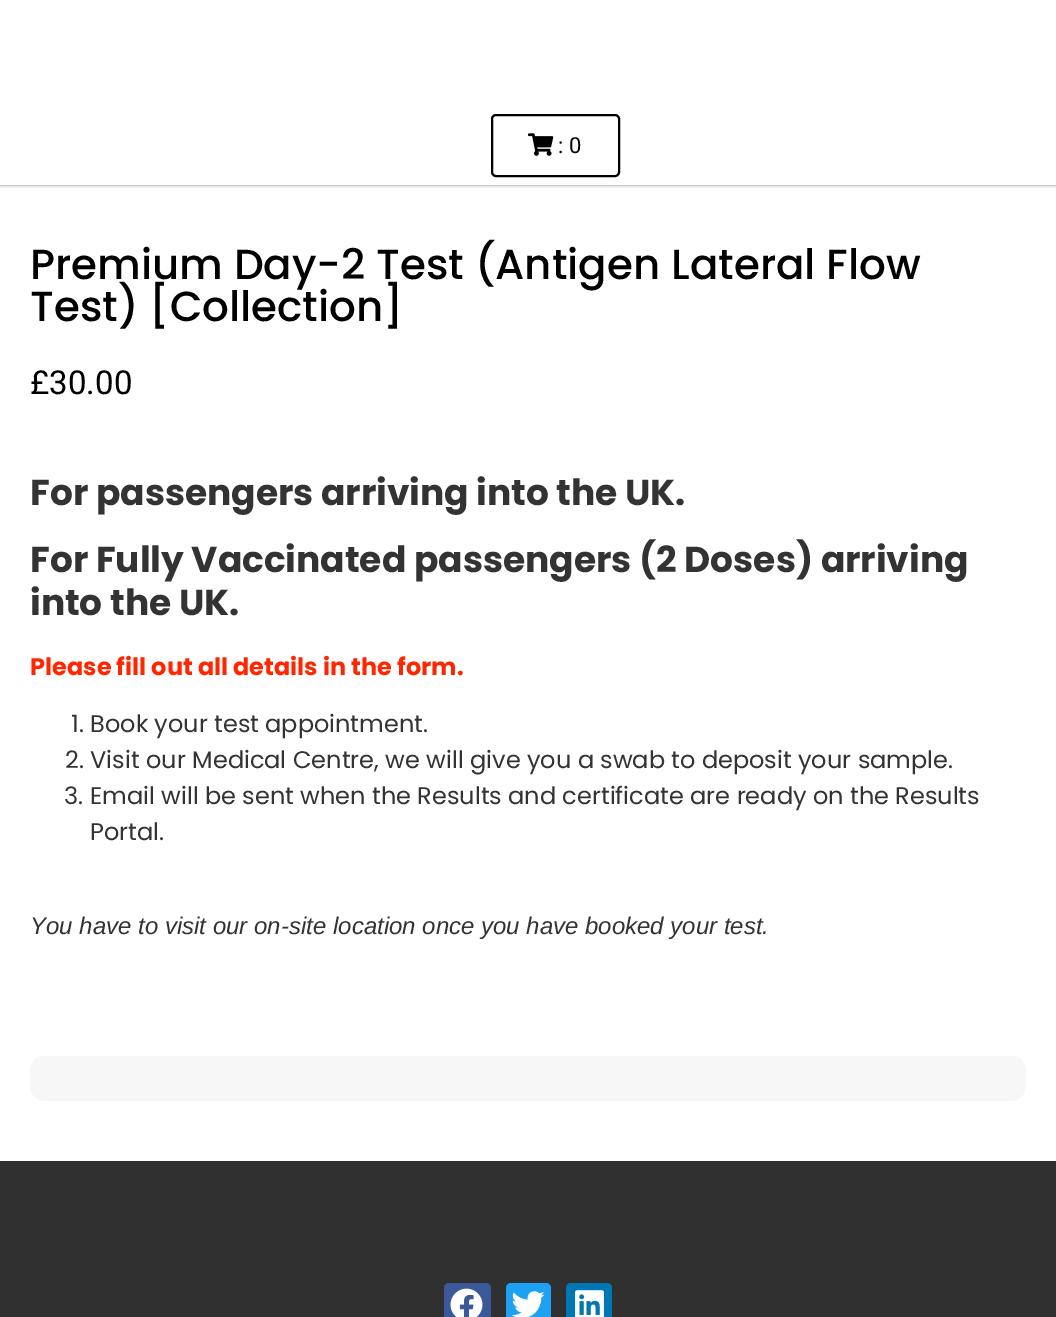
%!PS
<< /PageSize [1056 1317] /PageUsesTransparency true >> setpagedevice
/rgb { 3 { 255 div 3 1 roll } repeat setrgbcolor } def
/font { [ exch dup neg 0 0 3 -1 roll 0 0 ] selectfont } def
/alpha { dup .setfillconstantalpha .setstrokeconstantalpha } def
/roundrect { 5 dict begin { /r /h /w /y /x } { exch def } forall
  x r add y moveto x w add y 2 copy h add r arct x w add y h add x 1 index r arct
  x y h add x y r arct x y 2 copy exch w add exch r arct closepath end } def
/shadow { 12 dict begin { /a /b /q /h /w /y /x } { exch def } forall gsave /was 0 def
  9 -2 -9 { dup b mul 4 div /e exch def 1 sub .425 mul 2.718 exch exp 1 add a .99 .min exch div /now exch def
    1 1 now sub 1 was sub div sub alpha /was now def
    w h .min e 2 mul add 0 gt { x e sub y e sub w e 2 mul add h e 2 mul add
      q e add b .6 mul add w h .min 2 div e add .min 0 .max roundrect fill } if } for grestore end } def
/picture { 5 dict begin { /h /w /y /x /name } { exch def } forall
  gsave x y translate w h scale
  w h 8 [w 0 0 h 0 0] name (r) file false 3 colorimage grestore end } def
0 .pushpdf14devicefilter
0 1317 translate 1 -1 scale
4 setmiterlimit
255 255 255 rgb
0 0 1056 1317 rectfill
0 0 0 rgb
0 0 1056 185 0 1.5 0.5 shadow
255 255 255 rgb
0 0 1056 185 rectfill
0 0 0 rgb
2 setlinewidth
492 115 127 61 4 roundrect stroke
(img/1.rgb) 528 133 26 23 picture
247 247 247 rgb
30 1056 996 45 15 roundrect fill
48 48 48 rgb
0 1161 1056 156 rectfill
59 89 152 rgb
444 1283 47 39 5 roundrect fill
(img/2.rgb) 450 1288 33 29 picture
29 161 242 rgb
506 1283 45 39 5 roundrect fill
(img/3.rgb) 511 1291 34 26 picture
0 119 181 rgb
566 1283 46 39 5 roundrect fill
(img/4.rgb) 575 1290 29 27 picture
/Roboto-Regular 22 font
0 0 0 rgb
558 153 moveto (: 0) show
/Poppins-Medium 42 font
30 279 moveto (Premium Day-2 Test \(Antigen Lateral Flow) show
30 321 moveto (Test\) [Collection]) show
/Roboto-Regular 33 font
30 394 moveto (£30.00) show
/Poppins-Bold 36 font
51 51 51 rgb
[
  [(For passengers arriving into the UK.) 30 505]
  [(For Fully Vaccinated passengers \(2 Doses\) arriving) 30 572]
  [(into the UK.) 30 615]
] { aload pop moveto show } forall
/Poppins-Bold 24 font
255 38 0 rgb
30 675 moveto (Please fill out all details in the form.) show
/Poppins-Regular 24 font
51 51 51 rgb
[
  [(1. Book your test appointment.) 71 732]
  [(2. Visit our Medical Centre, we will give you a swab to deposit your sample.) 65 768]
  [(3. Email will be sent when the Results and certificate are ready on the Results) 64 804]
  [(Portal.) 90 840]
] { aload pop moveto show } forall
/LiberationSans-Italic 24 font
30 934 moveto (You have to visit our on-site location once you have booked your test.) show
.poppdf14devicefilter showpage
